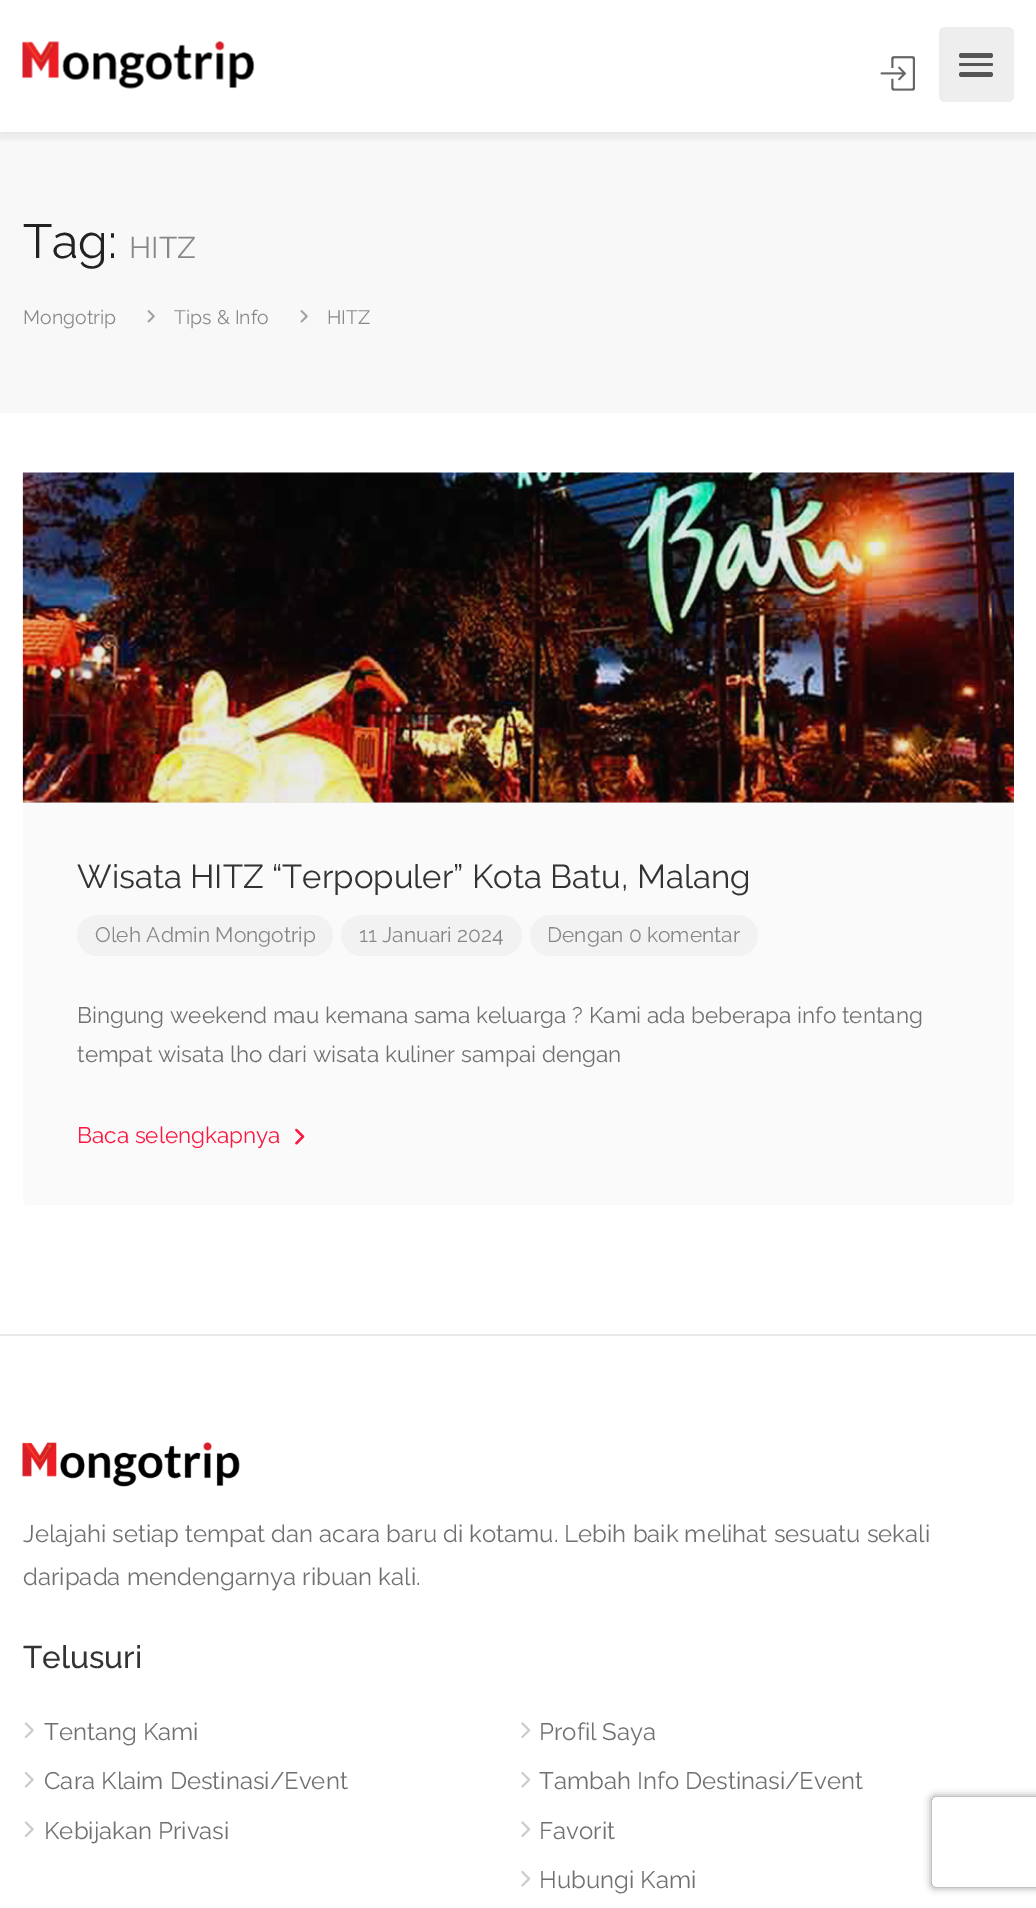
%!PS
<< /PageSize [1036 1908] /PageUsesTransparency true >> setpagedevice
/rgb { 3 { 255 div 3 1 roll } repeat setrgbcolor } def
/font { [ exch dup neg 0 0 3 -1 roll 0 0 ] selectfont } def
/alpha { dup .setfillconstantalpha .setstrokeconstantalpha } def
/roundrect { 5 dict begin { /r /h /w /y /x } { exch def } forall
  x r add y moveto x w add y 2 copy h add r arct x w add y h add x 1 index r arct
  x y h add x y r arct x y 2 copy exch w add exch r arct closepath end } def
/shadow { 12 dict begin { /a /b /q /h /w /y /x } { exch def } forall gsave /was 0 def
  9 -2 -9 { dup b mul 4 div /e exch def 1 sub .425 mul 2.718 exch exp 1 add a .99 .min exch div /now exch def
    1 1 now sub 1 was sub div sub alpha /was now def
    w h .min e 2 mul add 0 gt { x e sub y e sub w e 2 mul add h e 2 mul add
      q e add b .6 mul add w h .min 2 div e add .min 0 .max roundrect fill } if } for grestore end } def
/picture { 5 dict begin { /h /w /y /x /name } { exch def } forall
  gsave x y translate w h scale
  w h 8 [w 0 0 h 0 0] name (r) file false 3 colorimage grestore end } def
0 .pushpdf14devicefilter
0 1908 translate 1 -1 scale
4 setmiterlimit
255 255 255 rgb
0 0 1036 1908 rectfill
248 248 248 rgb
0 132 1036 281 rectfill
gsave
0 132 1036 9 rectclip
0 0 0 rgb
0 0 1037 132 0 9 0.12 shadow
grestore
(img/1.rgb) 22 41 233 48 picture
238 238 238 rgb
939 27 75 75 6 roundrect fill
85 85 85 rgb
959 72 34 5 2.5 roundrect fill
959 53 34 5 2.5 roundrect fill
959 63 34 3 1.5 roundrect fill
(img/2.rgb) 880 56 35 35 picture
(img/3.rgb) 147 310 8 13 picture
(img/3.rgb) 300 310 8 13 picture
250 250 250 rgb
23 473 991 732 5 roundrect fill
(img/4.rgb) 22 472 992 331 picture
0.1 alpha
51 51 51 rgb
28 473 moveto 1009 473 lineto 1012 473 1014 475 1014 478 curveto 1014 803 lineto 23 803 lineto 23 478 lineto 23 475 25 473 28 473 curveto closepath fill
1 alpha
242 242 242 rgb
77 915 256 41 20.5 roundrect fill
341 915 181 41 20.5 roundrect fill
530 915 228 41 20.5 roundrect fill
(img/5.rgb) 295 1128 10 17 picture
232 232 232 rgb
0 1334 1036 2 rectfill
(img/6.rgb) 22 1442 218 45 picture
(img/7.rgb) 24 1722 10 16 picture
(img/8.rgb) 24 1772 10 16 picture
(img/7.rgb) 24 1821 10 16 picture
(img/9.rgb) 521 1722 10 16 picture
(img/10.rgb) 521 1772 10 16 picture
(img/9.rgb) 521 1821 10 16 picture
(img/10.rgb) 521 1871 10 16 picture
gsave
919 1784 moveto 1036 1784 lineto 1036 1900 lineto 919 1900 lineto closepath 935 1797 moveto 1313 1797 lineto 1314.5 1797 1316 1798.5 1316 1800 curveto 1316 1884 lineto 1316 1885.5 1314.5 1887 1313 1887 curveto 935 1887 lineto 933.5 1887 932 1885.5 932 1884 curveto 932 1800 lineto 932 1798.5 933.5 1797 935 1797 curveto closepath eoclip newpath
128 128 128 rgb
932 1797 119 90 3 4 1 shadow
grestore
/Raleway-Thin 48 font
34 34 34 rgb
23 258 moveto (Tag:) show
/Raleway-Thin 30 font
136 136 136 rgb
129 258 moveto (HITZ) show
/Raleway-Thin 19.5 font
[
  [(Mongotrip) 23 324]
  [(Tips & Info) 174 324]
  [(HITZ) 327 324]
] { aload pop moveto show } forall
/Raleway-Thin 33 font
51 51 51 rgb
77 888 moveto (Wisata HITZ “Terpopuler” Kota Batu, Malang) show
/Raleway-Thin 21 font
136 136 136 rgb
[
  [(Oleh Admin Mongotrip) 95 942]
  [(11 Januari 2024) 359 942]
  [(Dengan 0 komentar) 547 942]
] { aload pop moveto show } forall
/Raleway-Thin 22.5 font
112 112 112 rgb
77 1023 moveto (Bingung weekend mau kemana sama keluarga ? Kami ada beberapa info tentang) show
77 1062 moveto (tempat wisata lho dari wisata kuliner sampai dengan) show
249 25 66 rgb
77 1143 moveto (Baca selengkapnya) show
/Raleway-Thin 24 font
112 112 112 rgb
23 1542 moveto (Jelajahi setiap tempat dan acara baru di kotamu. Lebih baik melihat sesuatu sekali) show
23 1585 moveto (daripada mendengarnya ribuan kali.) show
/Raleway-Medium 31.5 font
51 51 51 rgb
23 1668 moveto (Telusuri) show
/Raleway-Thin 24 font
112 112 112 rgb
[
  [(Tentang Kami) 44 1740]
  [(Cara Klaim Destinasi/Event) 44 1789]
  [(Kebijakan Privasi) 44 1839]
  [(Profil Saya) 539 1740]
  [(Tambah Info Destinasi/Event) 539 1789]
  [(Favorit) 539 1839]
  [(Hubungi Kami) 539 1888]
] { aload pop moveto show } forall
.poppdf14devicefilter showpage
